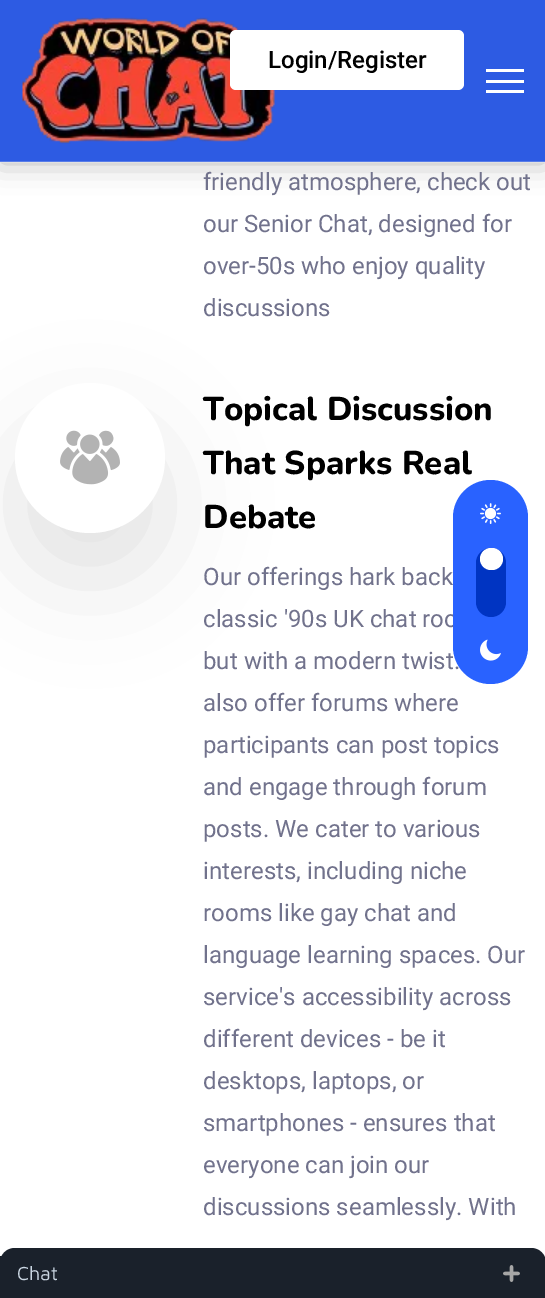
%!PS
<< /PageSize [545 1298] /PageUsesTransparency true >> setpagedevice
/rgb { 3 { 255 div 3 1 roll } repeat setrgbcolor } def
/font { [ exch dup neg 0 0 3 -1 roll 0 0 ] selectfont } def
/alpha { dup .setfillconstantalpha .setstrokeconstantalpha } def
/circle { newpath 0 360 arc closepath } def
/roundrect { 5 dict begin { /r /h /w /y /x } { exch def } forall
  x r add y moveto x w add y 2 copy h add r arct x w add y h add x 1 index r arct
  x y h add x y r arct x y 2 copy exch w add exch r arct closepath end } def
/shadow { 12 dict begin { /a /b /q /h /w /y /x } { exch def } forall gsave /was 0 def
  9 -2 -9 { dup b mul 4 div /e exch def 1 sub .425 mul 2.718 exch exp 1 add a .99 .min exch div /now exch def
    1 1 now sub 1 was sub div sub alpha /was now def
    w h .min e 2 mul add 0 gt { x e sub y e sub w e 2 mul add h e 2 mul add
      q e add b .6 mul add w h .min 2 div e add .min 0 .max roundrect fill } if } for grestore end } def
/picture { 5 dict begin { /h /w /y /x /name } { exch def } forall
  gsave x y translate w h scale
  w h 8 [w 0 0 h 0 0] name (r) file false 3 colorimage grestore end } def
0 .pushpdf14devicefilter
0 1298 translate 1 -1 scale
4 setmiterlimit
255 255 255 rgb
0 0 545 1298 rectfill
0 0 0 rgb
0 0 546 162 0 15 0.3 shadow
45 91 227 rgb
0 0 545 162 rectfill
0.2 alpha
255 255 255 rgb
0 161 545 2 rectfill
1 alpha
(img/1.rgb) 22 17 253 127 picture
[
  [486 69 38 3 255 255 255]
  [486 80 38 3 255 255 255]
  [486 90 38 3 255 255 255]
] { aload pop rgb rectfill } forall
230 30 234 60 6 roundrect fill
153 153 153 rgb
15 429 150 150 75 49 0.28 shadow
255 255 255 rgb
90 458 75 circle fill
(img/2.rgb) 60 430 60 55 picture
26 33 43 rgb
15 1248 moveto 531 1248 lineto 539.5 1248 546 1254.5 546 1263 curveto 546 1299 lineto 0 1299 lineto 0 1263 lineto 0 1254.5 6.5 1248 15 1248 curveto closepath fill
0 1256 2 7 rectfill
(img/3.rgb) 503 1265 17 17 picture
/Roboto-Medium 24 font
0 0 0 rgb
268 68 moveto (Login/Register) show
/Roboto-Regular 24 font
113 114 140 rgb
[
  [(friendly atmosphere, check out) 203 190]
  [(our Senior Chat, designed for) 203 232]
  [(over-50s who enjoy quality) 203 274]
  [(discussions) 203 316]
] { aload pop moveto show } forall
/Nunito-ExtraBold 33 font
0 0 0 rgb
[
  [(Topical Discussion) 203 420]
  [(That Sparks Real) 203 474]
  [(Debate) 203 528]
] { aload pop moveto show } forall
/Roboto-Regular 24 font
113 114 140 rgb
[
  [(Our offerings hark back) 203 585]
  [(classic '90s UK chat roo) 203 627]
  [(but with a modern twist.) 203 669]
  [(also offer forums where) 203 711]
  [(participants can post topics) 203 753]
  [(and engage through forum) 203 795]
  [(posts. We cater to various) 203 837]
  [(interests, including niche) 203 879]
  [(rooms like gay chat and) 203 921]
  [(language learning spaces. Our) 203 963]
  [(service's accessibility across) 203 1005]
  [(different devices - be it) 203 1047]
  [(desktops, laptops, or) 203 1089]
  [(smartphones - ensures that) 203 1131]
  [(everyone can join our) 203 1173]
  [(discussions seamlessly. With) 203 1215]
] { aload pop moveto show } forall
/MavenPro-Regular 19.5 font
202 214 226 rgb
17 1280 moveto (Chat) show
41 98 255 rgb
453 480 75 204 37.5 roundrect fill
(img/4.rgb) 480 503 21 21 picture
0 52 194 rgb
476 548 30 69 15 roundrect fill
255 255 255 rgb
480 548 23 22 11 roundrect fill
(img/5.rgb) 480 639 21 22 picture
.poppdf14devicefilter showpage
